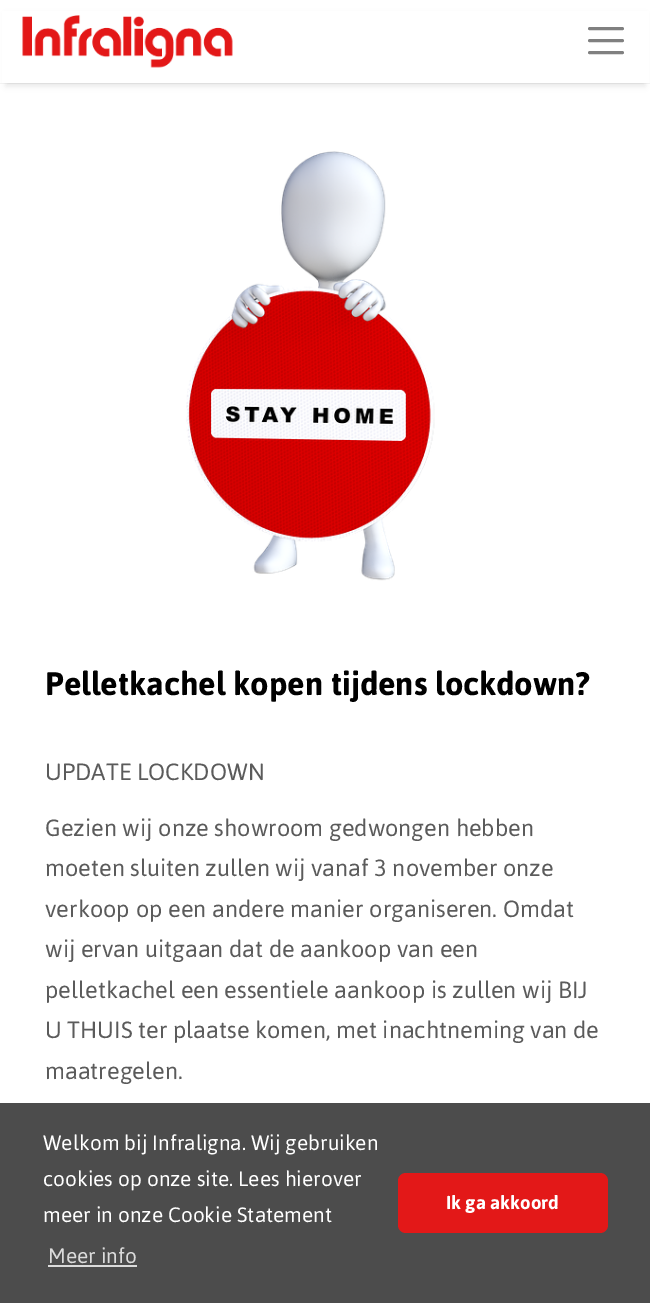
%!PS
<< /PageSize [650 1303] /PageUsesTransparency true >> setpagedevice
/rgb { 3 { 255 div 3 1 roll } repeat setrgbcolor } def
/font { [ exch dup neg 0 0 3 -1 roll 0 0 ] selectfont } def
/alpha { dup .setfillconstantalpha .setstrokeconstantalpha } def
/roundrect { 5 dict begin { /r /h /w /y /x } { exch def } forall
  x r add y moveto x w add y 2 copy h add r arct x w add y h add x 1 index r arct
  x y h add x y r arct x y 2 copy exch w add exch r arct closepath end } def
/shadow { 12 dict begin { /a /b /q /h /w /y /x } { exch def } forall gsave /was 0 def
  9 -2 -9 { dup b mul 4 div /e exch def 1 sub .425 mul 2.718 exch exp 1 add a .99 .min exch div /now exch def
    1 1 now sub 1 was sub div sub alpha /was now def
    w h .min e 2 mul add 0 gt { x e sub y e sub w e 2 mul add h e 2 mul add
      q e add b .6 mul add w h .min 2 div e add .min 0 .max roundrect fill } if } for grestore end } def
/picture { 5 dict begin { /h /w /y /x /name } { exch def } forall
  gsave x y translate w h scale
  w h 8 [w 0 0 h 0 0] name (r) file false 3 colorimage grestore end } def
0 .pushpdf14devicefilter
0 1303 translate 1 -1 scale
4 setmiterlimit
255 255 255 rgb
0 0 650 1303 rectfill
244 244 244 rgb
0 83 650 1 rectfill
0 0 0 rgb
6 15 639 71 0 3 0.1 shadow
255 255 255 rgb
2 11 647 72 rectfill
(img/1.rgb) 22 15 211 53 picture
128 128 128 rgb
3 setlinewidth
1 setlinecap
589.5 28.5 moveto 622.5 28.5 lineto 589.5 40.5 moveto 622.5 40.5 lineto 589.5 52.5 moveto 622.5 52.5 lineto stroke
(img/2.rgb) 186 151 249 430 picture
76 76 76 rgb
0 1103 650 200 rectfill
219 219 219 rgb
48 1265 89 2 rectfill
227 24 24 rgb
398 1173 210 60 8 roundrect fill
/Jaldi-Bold 37.5 font
0 0 0 rgb
45 695 moveto (Pelletkachel kopen tijdens lockdown?) show
/Jaldi-Regular 27 font
91 91 91 rgb
[
  [(UPDATE LOCKDOWN) 45 780]
  [(Gezien wij onze showroom gedwongen hebben) 45 836]
  [(moeten sluiten zullen wij vanaf 3 november onze) 45 876]
  [(verkoop op een andere manier organiseren. Omdat) 45 917]
  [(wij ervan uitgaan dat de aankoop van een) 45 957]
  [(pelletkachel een essentiele aankoop is zullen wij BIJ) 45 998]
  [(U THUIS ter plaatse komen, met inachtneming van de) 45 1038]
  [(maatregelen.) 45 1079]
] { aload pop moveto show } forall
/Jaldi-Regular 24 font
255 255 255 rgb
[
  [(Welkom bij Infraligna. Wij gebruiken) 43 1150]
  [(cookies op onze site. Lees hierover) 43 1186]
  [(meer in onze Cookie Statement) 43 1222]
] { aload pop moveto show } forall
219 219 219 rgb
48 1263 moveto (Meer info) show
/Jaldi-Bold 21.5 font
255 255 255 rgb
446 1209 moveto (Ik ga akkoord) show
.poppdf14devicefilter showpage
